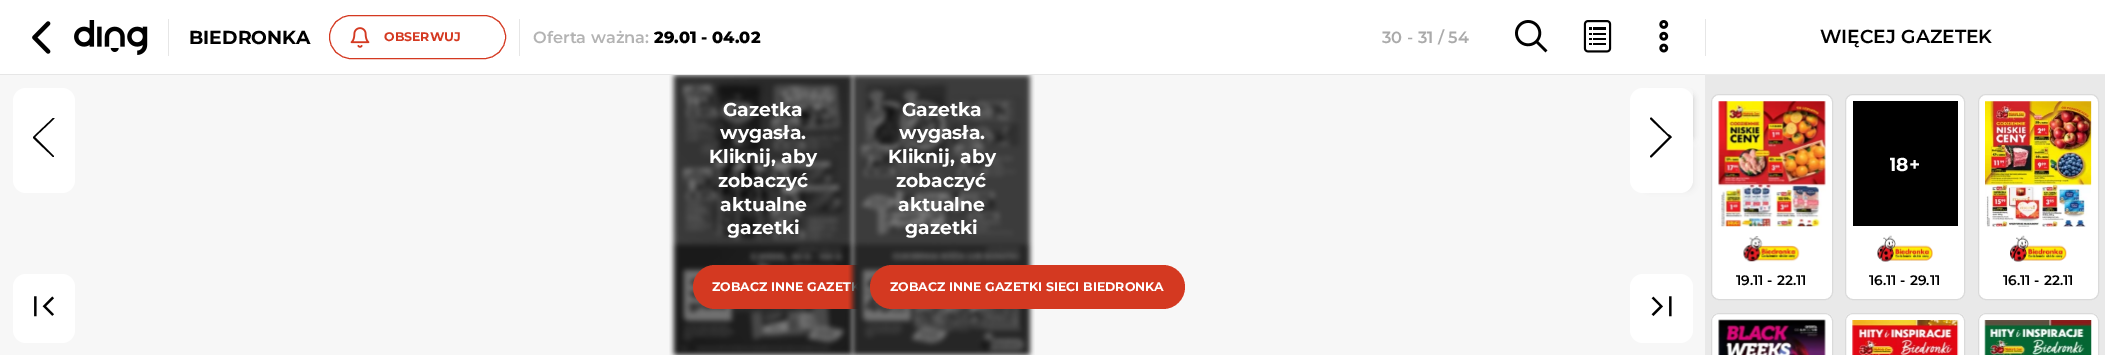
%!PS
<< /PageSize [2105 355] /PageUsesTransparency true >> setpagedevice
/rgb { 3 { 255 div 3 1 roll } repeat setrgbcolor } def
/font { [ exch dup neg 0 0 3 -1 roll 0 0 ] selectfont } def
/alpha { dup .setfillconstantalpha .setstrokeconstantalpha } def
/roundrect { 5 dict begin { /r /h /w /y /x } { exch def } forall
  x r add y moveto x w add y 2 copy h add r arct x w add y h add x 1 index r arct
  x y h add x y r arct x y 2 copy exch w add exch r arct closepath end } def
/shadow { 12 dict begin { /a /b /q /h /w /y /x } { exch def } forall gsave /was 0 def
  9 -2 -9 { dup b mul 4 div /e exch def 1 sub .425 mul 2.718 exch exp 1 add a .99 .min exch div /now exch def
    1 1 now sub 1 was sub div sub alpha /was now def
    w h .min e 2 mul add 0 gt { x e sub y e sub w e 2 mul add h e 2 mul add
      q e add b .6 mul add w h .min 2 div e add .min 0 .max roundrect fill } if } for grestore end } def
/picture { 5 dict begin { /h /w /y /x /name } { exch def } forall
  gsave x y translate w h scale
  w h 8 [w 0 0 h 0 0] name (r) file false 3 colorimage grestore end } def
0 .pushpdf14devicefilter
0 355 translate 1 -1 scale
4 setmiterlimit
247 247 247 rgb
0 0 2105 355 rectfill
255 255 255 rgb
0 0 2105 74 rectfill
230 230 230 rgb
0 74 1705 1 rectfill
(img/1.rgb) 32 21 19 33 picture
(img/2.rgb) 74 20 74 35 picture
168 19 1 37 rectfill
212 57 33 rgb
329.5 15.5 176 43 21.5 roundrect stroke
(img/3.rgb) 350 27 20 21 picture
230 230 230 rgb
519 19 1 37 rectfill
(img/4.rgb) 1515 20 33 33 picture
(img/5.rgb) 1583 20 29 33 picture
(img/6.rgb) 1659 20 10 33 picture
255 255 255 rgb
13 88 62 105 13 roundrect fill
gsave
33 118 22 40 rectclip
0 0 0 rgb
33 137 moveto 53 118 lineto 54 117 55 118 54 119 curveto 35 137 lineto 51 153 lineto 54 156 lineto 54 157 lineto 53 157 lineto 33 138 lineto 32 137 lineto closepath fill
grestore
0 0 0 rgb
1645 94 48 47 5 3 0.2 shadow
247 247 247 rgb
1645 88 48 47 5 roundrect fill
0 0 0 rgb
1645 143 48 47 5 3 0.07 shadow
(img/7.rgb) 669 75 188 280 picture
212 57 33 rgb
693 265 313 44 22 roundrect fill
255 255 255 rgb
1630 88 63 105 13 roundrect fill
0 0 0 rgb
1671 138 moveto 1652 157 lineto 1651 158 1650 157 1650 156 curveto 1669 137 lineto 1650 119 lineto 1650 118 1651 117 1652 118 curveto 1668 134 lineto 1670 135 1673 137 1671 138 curveto closepath fill
255 255 255 rgb
13 274 62 69 13 roundrect fill
(img/9.rgb) 34 296 20 21 picture
1630 274 63 69 13 roundrect fill
(img/10.rgb) 1651 296 21 21 picture
[
  [1705 74 400 1 235 235 235]
  [1705 19 1 37 230 230 230]
  [1705 75 400 280 233 233 233]
] { aload pop rgb rectfill } forall
255 255 255 rgb
1711.5 94.5 121 205 7.5 roundrect gsave fill grestore
218 218 218 rgb
stroke
(img/11.rgb) 1718 101 108 126 picture
(img/12.rgb) 1743 236 57 26 picture
255 255 255 rgb
1845.5 94.5 119 205 7.5 roundrect gsave fill grestore
218 218 218 rgb
stroke
0 0 0 rgb
1853 101 105 125 rectfill
(img/13.rgb) 1877 235 56 27 picture
255 255 255 rgb
1978.5 94.5 120 205 7.5 roundrect gsave fill grestore
218 218 218 rgb
stroke
(img/14.rgb) 1985 101 107 126 picture
(img/15.rgb) 2010 235 57 27 picture
255 255 255 rgb
1719 313 moveto 1825 313 lineto 1829.5 313 1833 316.5 1833 321 curveto 1833 355 lineto 1711 355 lineto 1711 321 lineto 1711 316.5 1714.5 313 1719 313 curveto closepath fill
218 218 218 rgb
1711.5 313.5 121 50 7.5 roundrect stroke
(img/16.rgb) 1718 319 108 36 picture
255 255 255 rgb
1853 313 moveto 1957 313 lineto 1961.5 313 1965 316.5 1965 321 curveto 1965 355 lineto 1845 355 lineto 1845 321 lineto 1845 316.5 1848.5 313 1853 313 curveto closepath fill
218 218 218 rgb
1845.5 313.5 119 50 7.5 roundrect stroke
(img/17.rgb) 1852 320 107 35 picture
255 255 255 rgb
1986 313 moveto 2091 313 lineto 2095.5 313 2099 316.5 2099 321 curveto 2099 355 lineto 1978 355 lineto 1978 321 lineto 1978 316.5 1981.5 313 1986 313 curveto closepath fill
218 218 218 rgb
1978.5 313.5 120 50 7.5 roundrect stroke
(img/18.rgb) 1984 320 108 35 picture
/Montserrat-Bold 18.75 font
0 0 0 rgb
189 44 moveto (BIEDRONKA) show
/Montserrat-Bold 12.5 font
212 57 33 rgb
384 41 moveto (OBSERWUJ) show
/Montserrat-SemiBold 16.25 font
179 179 179 rgb
533 43 moveto (Oferta ważna:) show
/Montserrat-ExtraBold 16.25 font
0 0 0 rgb
654 43 moveto (29.01 - 04.02) show
/Montserrat-SemiBold 16.25 font
170 170 170 rgb
1382 43 moveto (30 - 31 / 54) show
/Montserrat-Bold 18.75 font
255 255 255 rgb
[
  [(Gazetka) 723 116]
  [(wygasła.) 720 139]
  [(Kliknij, aby) 709 163]
  [(zobaczyć) 718 187]
  [(aktualne) 720 211]
  [(gazetki) 727 234]
] { aload pop moveto show } forall
/Montserrat-Bold 12.5 font
712 291 moveto (ZOBACZ INNE GAZET) show
(img/8.rgb) 848 75 187 280 picture
/Montserrat-Bold 18.75 font
[
  [(Gazetka) 902 116]
  [(wygasła.) 899 139]
  [(Kliknij, aby) 888 163]
  [(zobaczyć) 896 187]
  [(aktualne) 898 211]
  [(gazetki) 905 234]
] { aload pop moveto show } forall
212 57 33 rgb
870 265 315 44 22 roundrect fill
/Montserrat-Bold 12.5 font
255 255 255 rgb
890 291 moveto (ZOBACZ INNE GAZETKI SIECI BIEDRONKA) show
/Montserrat-SemiBold 18.75 font
0 0 0 rgb
1820 43 moveto (WIĘCEJ GAZETEK) show
/Montserrat-SemiBold 13.75 font
1736 285 moveto (19.11 - 22.11) show
gsave
1890 151 30 27 rectclip
/Montserrat-Bold 18.75 font
255 255 255 rgb
1889 171 moveto (18+) show
grestore
1869 285 moveto (16.11 - 29.11) show
2003 285 moveto (16.11 - 22.11) show
.poppdf14devicefilter showpage
